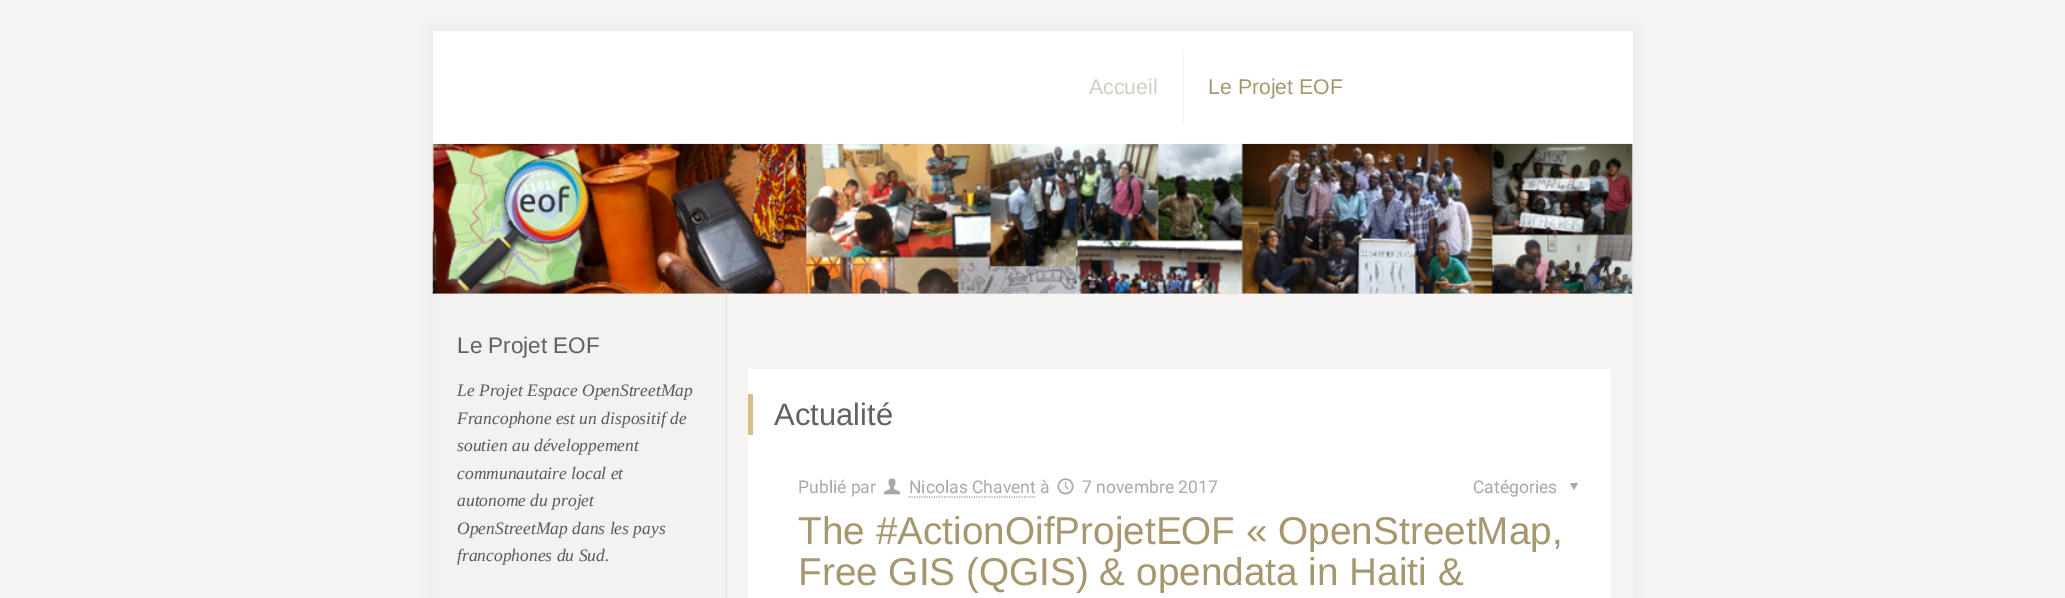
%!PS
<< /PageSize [2065 598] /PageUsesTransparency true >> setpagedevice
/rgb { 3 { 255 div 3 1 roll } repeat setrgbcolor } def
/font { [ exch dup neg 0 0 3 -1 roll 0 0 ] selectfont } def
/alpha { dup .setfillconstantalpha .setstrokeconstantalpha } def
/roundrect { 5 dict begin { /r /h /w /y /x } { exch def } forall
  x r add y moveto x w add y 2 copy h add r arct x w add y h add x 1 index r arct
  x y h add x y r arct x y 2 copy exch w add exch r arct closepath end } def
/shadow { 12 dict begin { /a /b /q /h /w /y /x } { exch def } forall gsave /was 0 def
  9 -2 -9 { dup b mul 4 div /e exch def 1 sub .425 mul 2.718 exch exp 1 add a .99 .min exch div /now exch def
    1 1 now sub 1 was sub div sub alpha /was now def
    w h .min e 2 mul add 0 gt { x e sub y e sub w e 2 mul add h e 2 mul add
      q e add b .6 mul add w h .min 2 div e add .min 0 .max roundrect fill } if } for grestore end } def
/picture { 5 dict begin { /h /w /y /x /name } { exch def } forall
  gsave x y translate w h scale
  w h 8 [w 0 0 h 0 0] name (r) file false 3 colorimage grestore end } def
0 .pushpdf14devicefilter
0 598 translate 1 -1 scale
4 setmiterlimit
245 244 243 rgb
0 0 2065 598 rectfill
0 0 0 rgb
433 31 1200 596 0 9.5 0.06 shadow
[
  [727 294 906 304 245 244 243]
  [433 31 1200 113 255 255 255]
  [1183 50 1 75 242 242 242]
  [433 144 1200 150 233 233 233]
] { aload pop rgb rectfill } forall
(img/1.rgb) 432 143 1201 151 picture
[
  [726 294 1 304 225 224 224]
  [433 294 293 304 242 242 241]
  [748 369 863 229 255 255 255]
  [748 394 5 41 214 191 134]
] { aload pop rgb rectfill } forall
(img/2.rgb) 883 478 18 17 picture
168 168 168 rgb
1.2 setlinewidth
[1.25 1.25] 0 setdash
909 497 moveto 1035 497 lineto stroke
(img/3.rgb) 1057 478 17 17 picture
1578 483 moveto 1574 490 lineto 1570 483 lineto closepath fill
/LiberationSans-Regular 21.25 font
210 204 189 rgb
1089 94 moveto (Accueil) show
167 151 111 rgb
1208 94 moveto (Le Projet EOF) show
/LiberationSans-Regular 22.5 font
97 97 105 rgb
457 353 moveto (Le Projet EOF) show
/LiberationSerif-Italic 17.5 font
93 89 87 rgb
[
  [(Le Projet Espace OpenStreetMap) 457 396]
  [(Francophone est un dispositif de) 457 424]
  [(soutien au développement) 457 451]
  [(communautaire local et) 457 479]
  [(autonome du projet) 457 506]
  [(OpenStreetMap dans les pays) 457 534]
  [(francophones du Sud.) 457 561]
] { aload pop moveto show } forall
/LiberationSans-Regular 31 font
97 97 105 rgb
774 425 moveto (Actualité) show
/Roboto-Regular 17.5 font
168 168 168 rgb
[
  [(Publié par) 798 493]
  [(Nicolas Chavent à) 909 493]
  [(7 novembre 2017) 1082 493]
  [(Catégories) 1473 493]
] { aload pop moveto show } forall
/LiberationSans-Regular 38.75 font
167 151 111 rgb
798 544 moveto (The #ActionOifProjetEOF « OpenStreetMap,) show
798 585 moveto (Free GIS \(QGIS\) & opendata in Haiti &) show
.poppdf14devicefilter showpage
